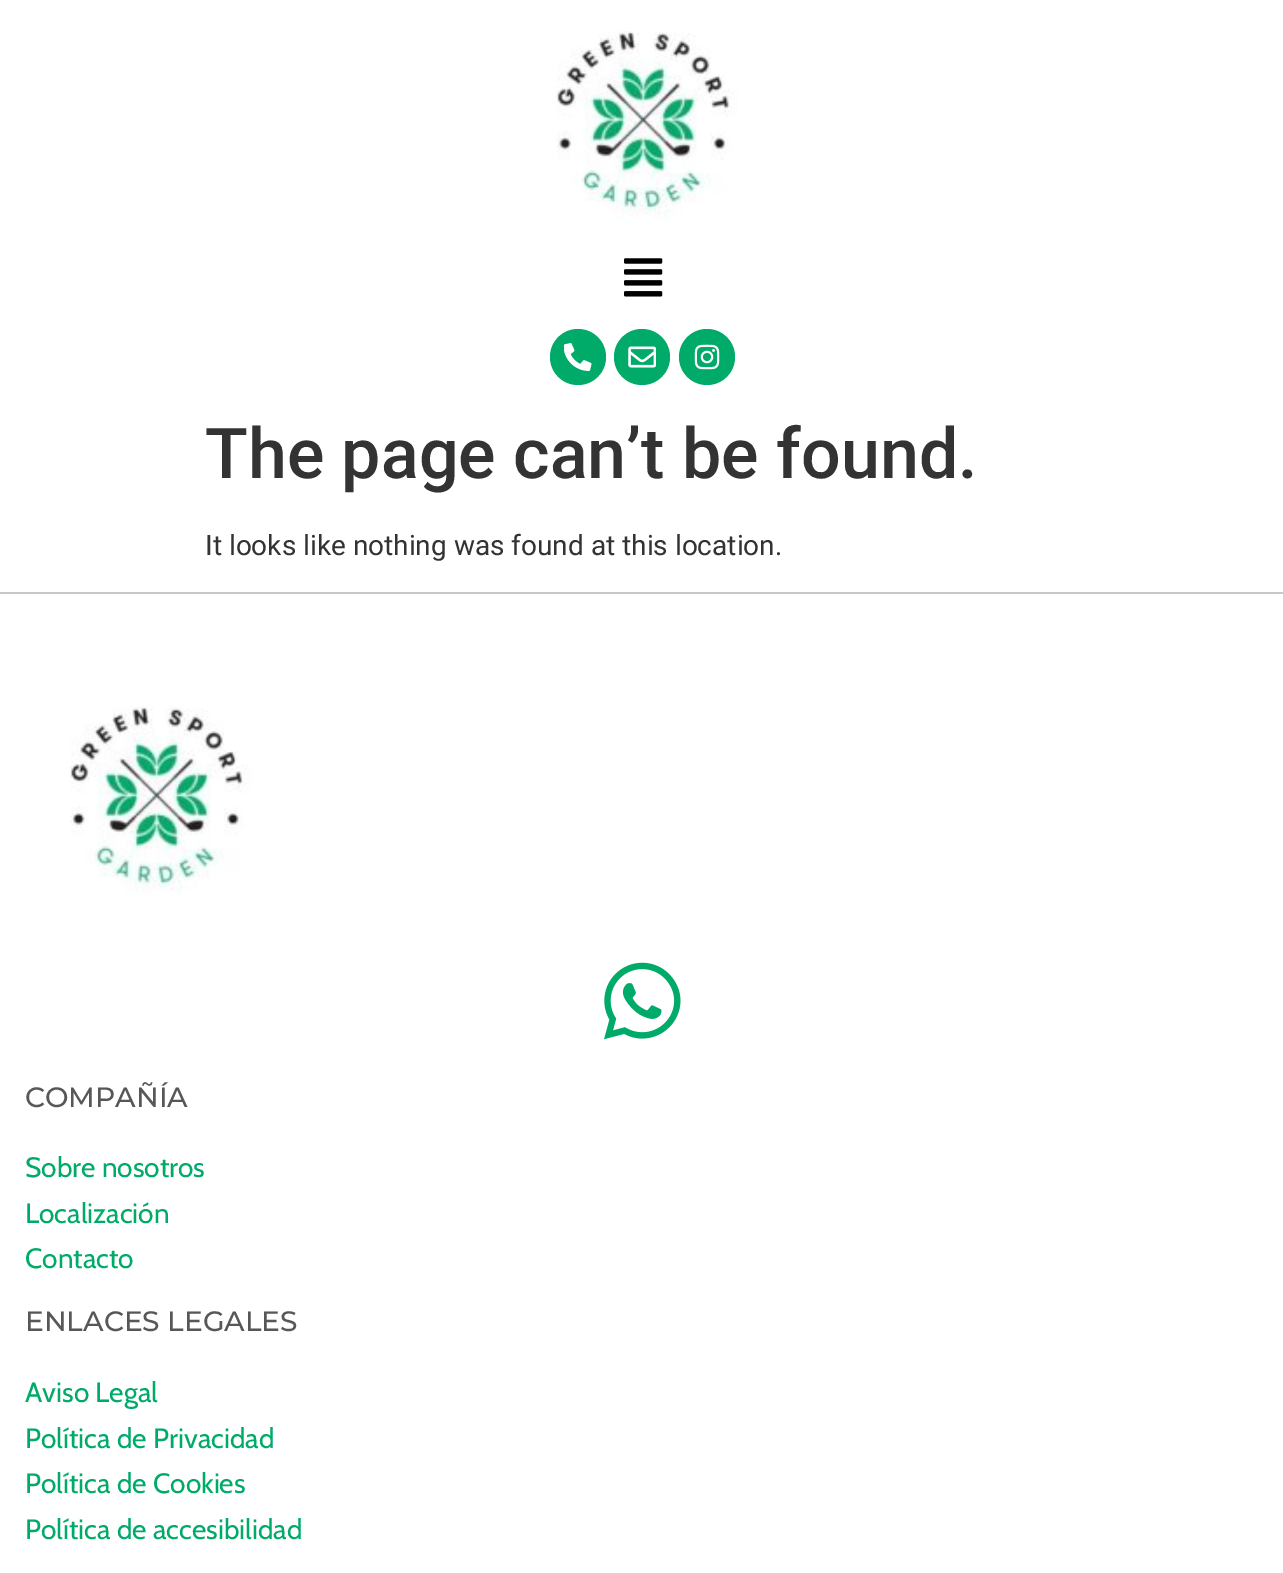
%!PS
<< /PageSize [1283 1573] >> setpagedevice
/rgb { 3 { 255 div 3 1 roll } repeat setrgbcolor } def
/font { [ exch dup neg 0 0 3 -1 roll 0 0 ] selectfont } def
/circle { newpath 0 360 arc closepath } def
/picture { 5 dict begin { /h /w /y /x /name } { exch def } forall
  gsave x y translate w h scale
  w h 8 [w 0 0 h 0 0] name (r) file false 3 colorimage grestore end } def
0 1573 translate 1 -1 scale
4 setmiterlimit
255 255 255 rgb
0 0 1283 1573 rectfill
(img/1.rgb) 556 31 182 190 picture
(img/2.rgb) 624 258 39 39 picture
0 170 105 rgb
578 357 28 circle fill
(img/3.rgb) 564 343 28 28 picture
642 357 28 circle fill
(img/4.rgb) 628 346 28 22 picture
707 357 28 circle fill
(img/5.rgb) 694 344 26 26 picture
200 200 200 rgb
0 592 1283 2 rectfill
(img/6.rgb) 70 706 182 190 picture
(img/7.rgb) 604 962 77 78 picture
/Roboto-Medium 70 font
51 51 51 rgb
205 478 moveto (The page can’t be found.) show
/Roboto-Regular 28 font
205 555 moveto (It looks like nothing was found at this location.) show
/Montserrat-Medium 28 font
87 87 87 rgb
25 1107 moveto (COMPAÑÍA) show
/Cabin-Regular 28 font
0 170 105 rgb
[
  [(Sobre nosotros) 25 1177]
  [(Localización) 25 1223]
  [(Contacto) 25 1268]
] { aload pop moveto show } forall
/Montserrat-Medium 28 font
87 87 87 rgb
25 1331 moveto (ENLACES LEGALES) show
/Cabin-Regular 28 font
0 170 105 rgb
[
  [(Aviso Legal) 25 1402]
  [(Política de Privacidad) 25 1448]
  [(Política de Cookies) 25 1493]
  [(Política de accesibilidad) 25 1539]
] { aload pop moveto show } forall
showpage
